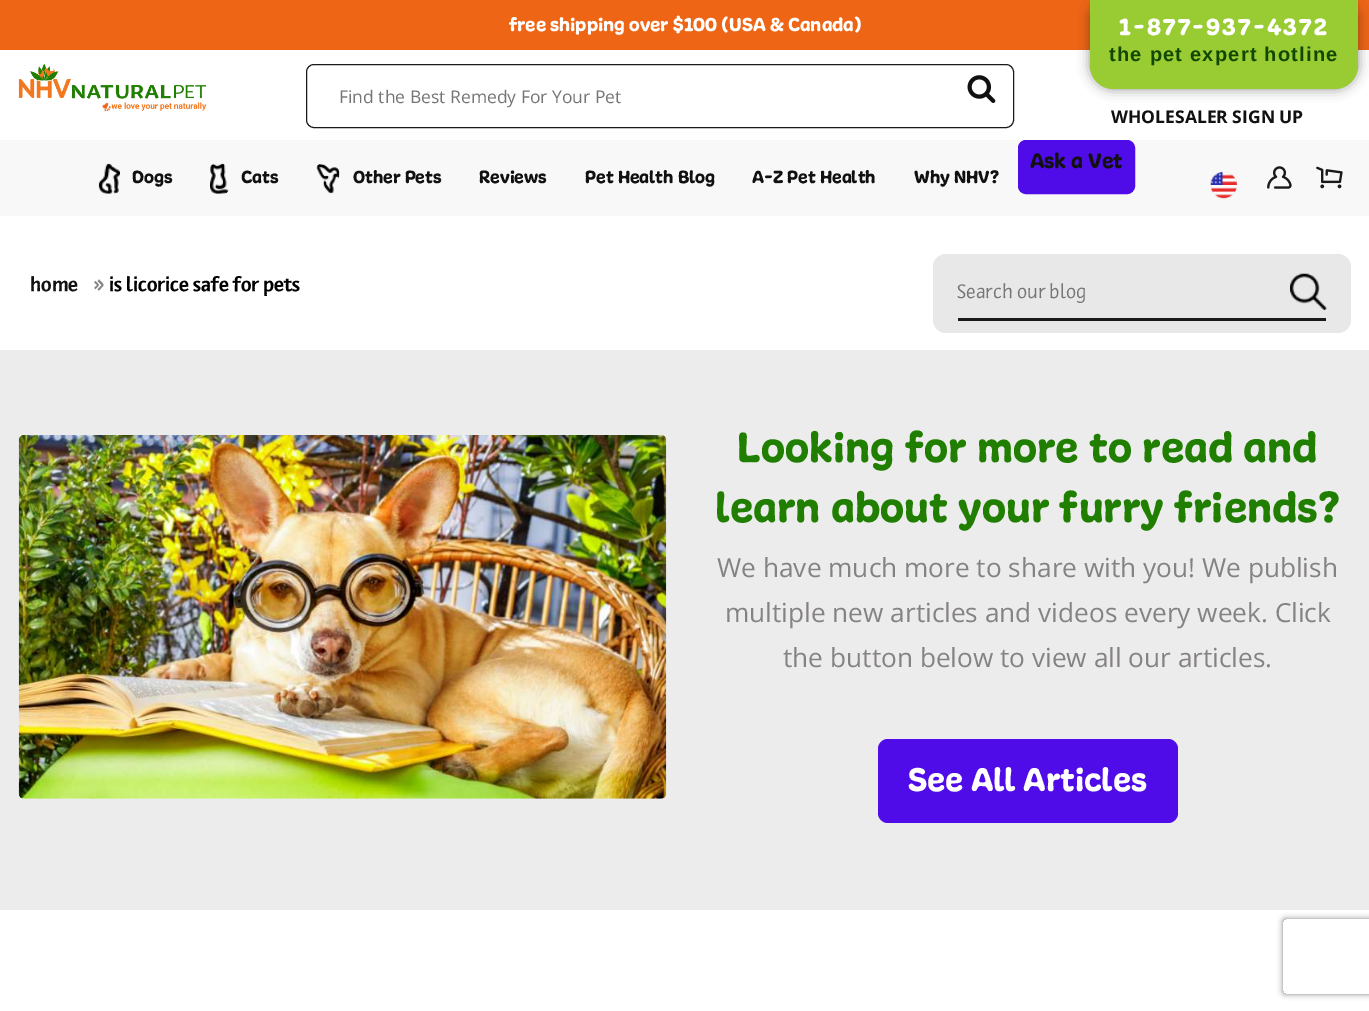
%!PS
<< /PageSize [1369 1011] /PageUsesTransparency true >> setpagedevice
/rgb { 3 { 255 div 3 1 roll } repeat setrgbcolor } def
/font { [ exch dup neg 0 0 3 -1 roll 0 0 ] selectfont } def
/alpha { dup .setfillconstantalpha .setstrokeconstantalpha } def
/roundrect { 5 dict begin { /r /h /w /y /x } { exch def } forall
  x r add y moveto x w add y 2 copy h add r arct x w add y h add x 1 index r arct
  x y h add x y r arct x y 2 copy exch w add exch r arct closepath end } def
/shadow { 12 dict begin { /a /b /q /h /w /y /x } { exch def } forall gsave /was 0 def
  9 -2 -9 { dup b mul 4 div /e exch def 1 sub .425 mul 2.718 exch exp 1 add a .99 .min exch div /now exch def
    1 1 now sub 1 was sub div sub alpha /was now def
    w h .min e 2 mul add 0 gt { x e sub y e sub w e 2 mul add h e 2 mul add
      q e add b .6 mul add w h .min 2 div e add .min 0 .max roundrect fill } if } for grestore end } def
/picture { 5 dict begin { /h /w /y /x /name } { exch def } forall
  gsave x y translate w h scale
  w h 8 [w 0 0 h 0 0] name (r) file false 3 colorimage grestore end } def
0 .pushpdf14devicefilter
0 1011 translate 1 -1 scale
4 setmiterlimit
255 255 255 rgb
0 0 1369 1011 rectfill
238 101 21 rgb
0 0 1369 50 rectfill
34 30 31 rgb
1090 -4 268 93 23 6 0.5 shadow
153 204 51 rgb
1090 -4 moveto 1358 -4 lineto 1358 66 lineto 1358 78.5 1347.5 89 1335 89 curveto 1113 89 lineto 1100.5 89 1090 78.5 1090 66 curveto closepath fill
(img/1.rgb) 18 64 189 48 picture
26 26 26 rgb
306.5 64.5 707 63 7.5 roundrect stroke
(img/2.rgb) 967 75 29 28 picture
248 248 248 rgb
0 140 1369 76 rectfill
79 12 232 rgb
1018.5 140.5 116 53 7.5 roundrect gsave fill grestore
stroke
(img/3.rgb) 98 163 22 31 picture
(img/4.rgb) 210 163 19 31 picture
(img/5.rgb) 316 163 24 31 picture
(img/6.rgb) 1210 171 27 28 picture
(img/7.rgb) 1267 166 25 23 picture
(img/8.rgb) 1316 166 27 23 picture
232 232 232 rgb
933 254 418 79 13 roundrect fill
(img/9.rgb) 1290 273 37 37 picture
26 26 26 rgb
958 318 368 3 rectfill
237 236 237 rgb
0 350 1369 560 rectfill
(img/10.rgb) 18 435 649 364 picture
79 12 232 rgb
878 739 300 84 10 roundrect fill
gsave
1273 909 moveto 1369 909 lineto 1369 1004 lineto 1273 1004 lineto closepath 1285.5 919 moveto 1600.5 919 lineto 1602 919 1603 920 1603 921.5 curveto 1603 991.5 lineto 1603 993 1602 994 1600.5 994 curveto 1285.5 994 lineto 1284 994 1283 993 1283 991.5 curveto 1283 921.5 lineto 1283 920 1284 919 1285.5 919 curveto closepath eoclip newpath
128 128 128 rgb
1283 919 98 75 2.5 3 1 shadow
grestore
/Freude-Regular 20 font
255 255 255 rgb
509 31 moveto (free shipping over $100 \(USA & Canada\)) show
/Freude-Regular 25 font
1119 35 moveto 2 0 (1-877-937-4372) ashow
/LiberationSans-Bold 20 font
17 71 0 rgb
1109 61 moveto 1.25 0 (the pet expert hotline) ashow
/OpenSans-Regular 17.5 font
117 117 117 rgb
339 103 moveto (Find the Best Remedy For Your Pet) show
/OpenSans-Bold 17.5 font
17 17 17 rgb
1111 123 moveto (WHOLESALER SIGN UP) show
/Freude-Regular 22.5 font
1030 168 moveto (Ask a Vet) show
/Freude-Regular 18.75 font
[
  [(Dogs) 132 183]
  [(Cats) 241 183]
  [(Other Pets) 353 183]
  [(Reviews) 479 183]
  [(Pet Health Blog) 585 183]
  [(A-Z Pet Health) 752 183]
  [(Why NHV?) 914 183]
] { aload pop moveto show } forall
/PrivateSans-Bold 20 font
30 291 moveto (home) show
132 130 131 rgb
93 291 moveto (») show
0 0 0 rgb
109 291 moveto (is licorice safe for pets) show
/PrivateSans-Regular 20 font
117 117 117 rgb
957 298 moveto (Search our blog) show
/Freude-Regular 45 font
32 127 1 rgb
737 462 moveto 0.3 0 (Looking for more to read and) ashow
715 522 moveto 0.3 0 (learn about your furry friends?) ashow
/OpenSans-Regular 26.25 font
132 130 131 rgb
[
  [(We have much more to share with you! We publish) 717 577]
  [(multiple new articles and videos every week. Click) 725 622]
  [(the button below to view all our articles.) 783 667]
] { aload pop moveto show } forall
/Freude-Regular 35 font
255 255 255 rgb
908 791 moveto (See All Articles) show
.poppdf14devicefilter showpage
